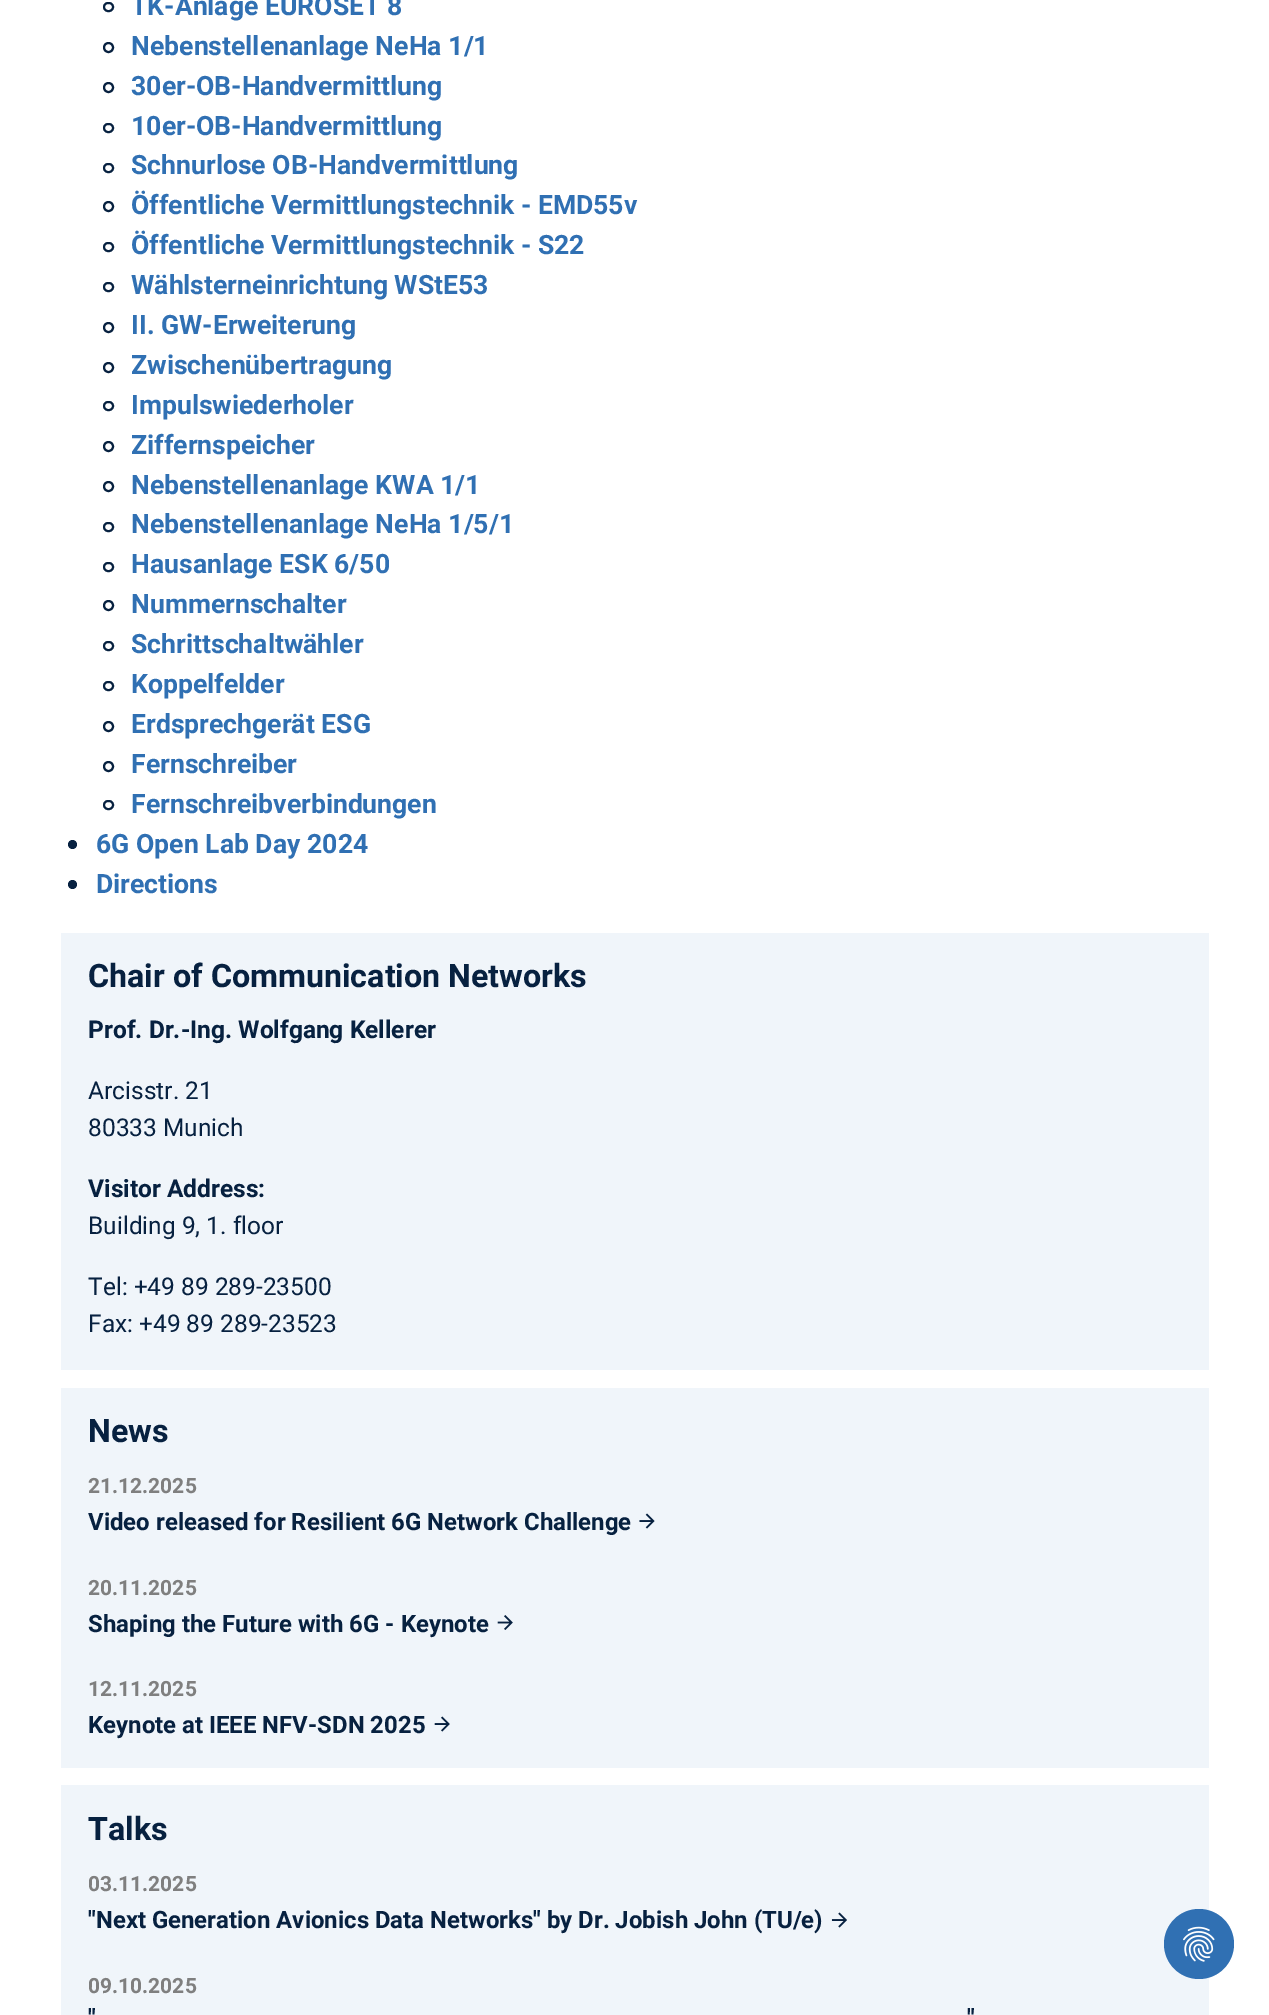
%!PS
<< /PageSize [1269 2015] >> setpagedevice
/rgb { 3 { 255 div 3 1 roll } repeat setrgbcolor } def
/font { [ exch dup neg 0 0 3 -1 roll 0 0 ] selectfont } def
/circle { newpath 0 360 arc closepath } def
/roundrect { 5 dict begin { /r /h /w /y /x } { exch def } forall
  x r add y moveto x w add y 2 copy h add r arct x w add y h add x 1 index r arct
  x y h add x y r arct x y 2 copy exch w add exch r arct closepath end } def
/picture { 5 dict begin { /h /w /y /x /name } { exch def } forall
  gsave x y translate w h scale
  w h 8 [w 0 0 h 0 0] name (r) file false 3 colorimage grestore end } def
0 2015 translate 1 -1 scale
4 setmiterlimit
255 255 255 rgb
0 0 1269 2015 rectfill
7 33 64 rgb
2 setlinewidth
104 3 9 8 4 roundrect stroke
108.5 47.5 4.5 circle stroke
108.5 87.5 4.5 circle stroke
104 124 9 8 4 roundrect stroke
104 164 9 8 4 roundrect stroke
108.5 206.5 4.5 circle stroke
104 243 9 8 4 roundrect stroke
104 283 9 8 4 roundrect stroke
108.5 327.5 4.5 circle stroke
108.5 367.5 4.5 circle stroke
104 402 9 8 4 roundrect stroke
108.5 446.5 4.5 circle stroke
108.5 486.5 4.5 circle stroke
104 523 9 8 4 roundrect stroke
104 563 9 8 4 roundrect stroke
108.5 605.5 4.5 circle stroke
104 642 9 8 4 roundrect stroke
104 682 9 8 4 roundrect stroke
108.5 726.5 4.5 circle stroke
108.5 766.5 4.5 circle stroke
104 801 9 8 4 roundrect stroke
72.5 844.5 4.5 circle fill
72.5 884.5 4.5 circle fill
240 245 250 rgb
61 933 1148 437 rectfill
61 1388 1148 380 rectfill
(img/1.rgb) 639 1513 16 16 picture
(img/2.rgb) 497 1615 16 15 picture
(img/3.rgb) 434 1716 16 16 picture
61 1785 1148 230 rectfill
(img/4.rgb) 831 1912 16 16 picture
48 112 179 rgb
1199 1944 35 circle fill
(img/5.rgb) 1183 1926 32 36 picture
/Roboto-Bold 26.6 font
[
  [(TK-Anlage EUROSET 8) 131 15]
  [(Nebenstellenanlage NeHa 1/1) 131 55]
  [(30er-OB-Handvermittlung) 131 95]
  [(10er-OB-Handvermittlung) 131 135]
  [(Schnurlose OB-Handvermittlung) 131 174]
  [(Öffentliche Vermittlungstechnik - EMD55v) 131 214]
  [(Öffentliche Vermittlungstechnik - S22) 131 254]
  [(Wählsterneinrichtung WStE53) 131 294]
  [(II. GW-Erweiterung) 131 334]
  [(Zwischenübertragung) 131 374]
  [(Impulswiederholer) 131 414]
  [(Ziffernspeicher) 131 454]
  [(Nebenstellenanlage KWA 1/1) 131 494]
  [(Nebenstellenanlage NeHa 1/5/1) 131 533]
  [(Hausanlage ESK 6/50) 131 573]
  [(Nummernschalter) 131 613]
  [(Schrittschaltwähler) 131 653]
  [(Koppelfelder) 131 693]
  [(Erdsprechgerät ESG) 131 733]
  [(Fernschreiber) 131 773]
  [(Fernschreibverbindungen) 131 813]
  [(6G Open Lab Day 2024) 96 853]
  [(Directions) 96 893]
] { aload pop moveto show } forall
/Roboto-Bold 32.25 font
7 33 64 rgb
88 987 moveto (Chair of Communication Networks) show
/Roboto-Bold 24.5 font
88 1038 moveto (Prof. Dr.-Ing. Wolfgang Kellerer) show
/Roboto-Regular 24.5 font
88 1099 moveto (Arcisstr. 21) show
88 1136 moveto (80333 Munich) show
/Roboto-Bold 24.5 font
88 1197 moveto (Visitor Address:) show
/Roboto-Regular 24.5 font
[
  [(Building 9, 1. floor) 88 1234]
  [(Tel: +49 89 289-23500) 88 1295]
  [(Fax: +49 89 289-23523) 88 1332]
] { aload pop moveto show } forall
/Roboto-Bold 32.25 font
88 1442 moveto (News) show
/Roboto-Bold 21 font
127 127 127 rgb
88 1493 moveto (21.12.2025) show
/Roboto-Bold 23.95 font
7 33 64 rgb
88 1530 moveto (Video released for Resilient 6G Network Challenge) show
/Roboto-Bold 21 font
127 127 127 rgb
88 1595 moveto (20.11.2025) show
/Roboto-Bold 23.95 font
7 33 64 rgb
88 1632 moveto (Shaping the Future with 6G - Keynote) show
/Roboto-Bold 21 font
127 127 127 rgb
88 1696 moveto (12.11.2025) show
/Roboto-Bold 23.95 font
7 33 64 rgb
88 1733 moveto (Keynote at IEEE NFV-SDN 2025) show
/Roboto-Bold 32.25 font
88 1840 moveto (Talks) show
/Roboto-Bold 21 font
127 127 127 rgb
88 1891 moveto (03.11.2025) show
/Roboto-Bold 23.95 font
7 33 64 rgb
88 1928 moveto ("Next Generation Avionics Data Networks" by Dr. Jobish John \(TU/e\)) show
/Roboto-Bold 21 font
127 127 127 rgb
88 1993 moveto (09.10.2025) show
/Roboto-Bold 23.95 font
7 33 64 rgb
88 2026 moveto (") show
967 2026 moveto (") show
showpage
